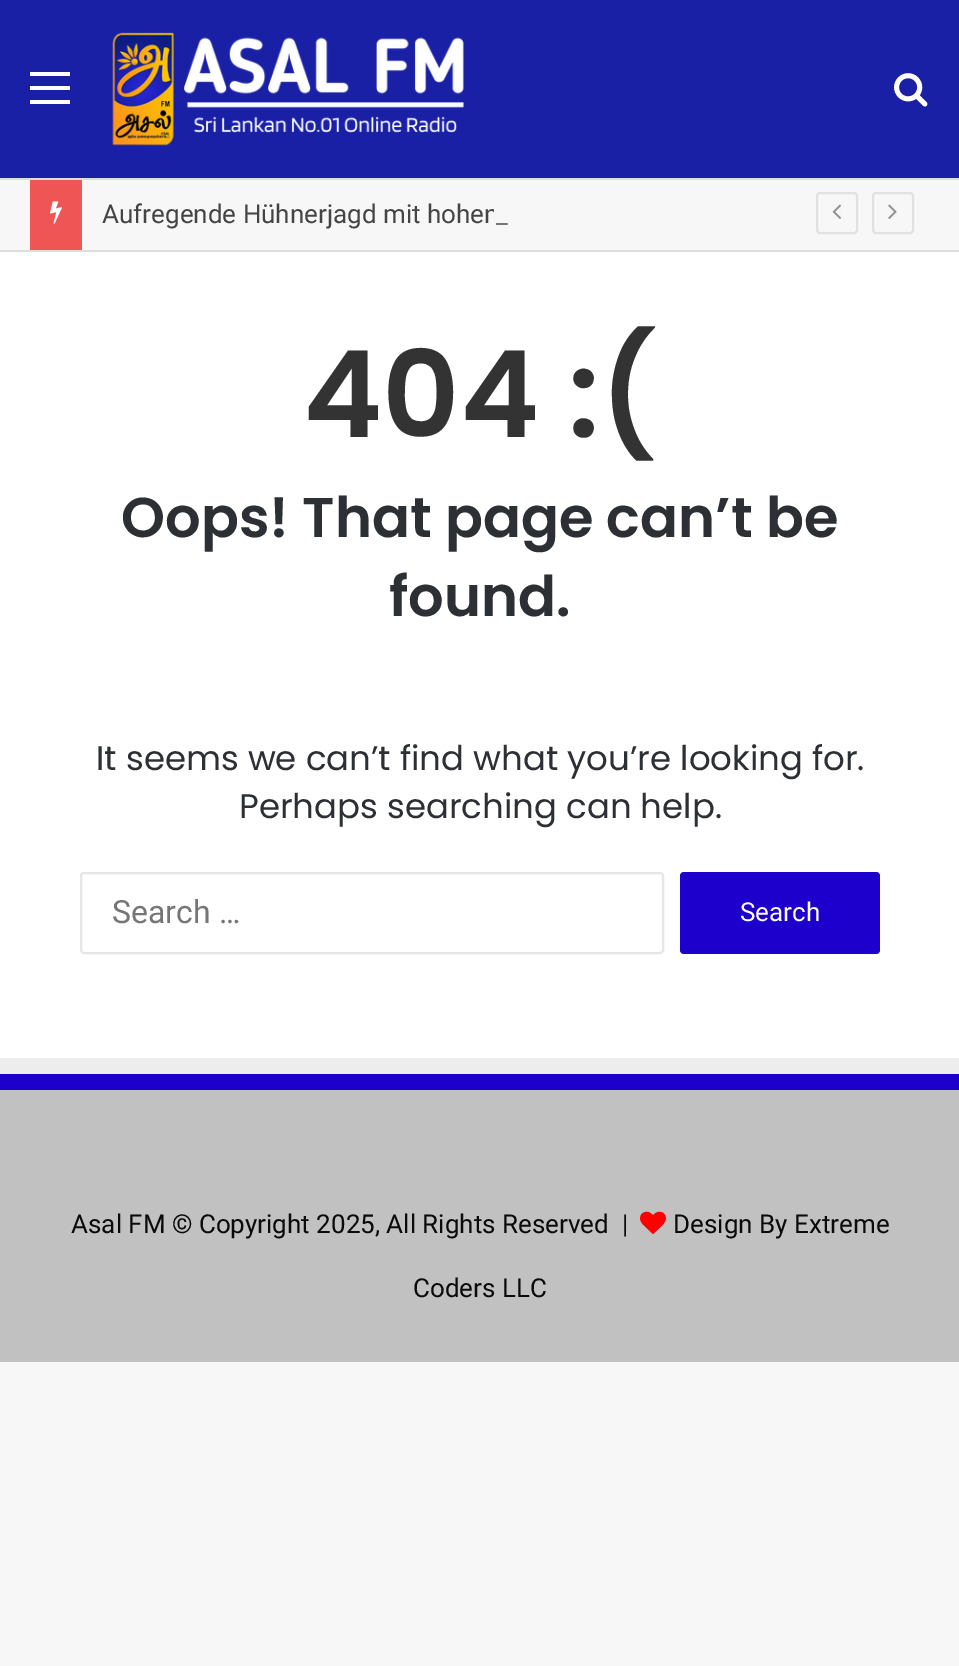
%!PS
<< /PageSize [959 1666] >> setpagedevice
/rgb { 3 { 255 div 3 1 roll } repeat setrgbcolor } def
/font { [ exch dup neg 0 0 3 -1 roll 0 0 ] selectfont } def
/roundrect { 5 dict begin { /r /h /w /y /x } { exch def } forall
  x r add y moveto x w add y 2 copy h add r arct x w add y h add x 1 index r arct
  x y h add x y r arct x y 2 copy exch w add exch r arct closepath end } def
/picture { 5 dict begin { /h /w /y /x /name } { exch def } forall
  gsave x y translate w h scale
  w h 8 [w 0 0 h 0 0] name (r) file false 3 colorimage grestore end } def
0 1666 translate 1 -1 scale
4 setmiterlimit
247 247 247 rgb
0 0 959 1666 rectfill
[
  [0 252 959 806 255 255 255]
  [0 0 959 178 26 32 165]
  [30 86 40 4 255 255 255]
  [30 72 40 4 255 255 255]
  [30 100 40 4 255 255 255]
] { aload pop rgb rectfill } forall
(img/1.rgb) 112 32 352 114 picture
(img/2.rgb) 894 73 34 34 picture
[
  [0 178 959 2 221 221 221]
  [0 250 959 2 221 221 221]
  [30 180 52 70 240 85 85]
] { aload pop rgb rectfill } forall
(img/3.rgb) 50 201 12 23 picture
225 225 225 rgb
2 setlinewidth
817 193 40 40 3 roundrect stroke
(img/4.rgb) 832 204 9 15 picture
873 193 40 40 3 roundrect stroke
(img/5.rgb) 888 204 9 15 picture
230 230 230 rgb
81 873 582 80 3 roundrect stroke
30 0 204 rgb
680 872 200 82 4 roundrect fill
[
  [0 1058 959 16 237 237 237]
  [0 1074 959 16 30 0 204]
  [0 1090 959 272 193 193 193]
] { aload pop rgb rectfill } forall
(img/6.rgb) 640 1211 26 23 picture
/Roboto-Regular 26 font
68 68 68 rgb
102 223 moveto (Aufregende Hühnerjagd mit hohen) show
245 245 245 rgb
494 209 3 14 rectfill
117 117 117 rgb
496 223 moveto (_) show
/Poppins-SemiBold 120 font
51 51 51 rgb
303 437 moveto (404 :\() show
/Poppins-SemiBold 56 font
44 47 52 rgb
121 537 moveto (Oops! That page can’t be) show
389 616 moveto (found.) show
/Poppins-Regular 34 font
96 770 moveto (It seems we can’t find what you’re looking for.) show
239 818 moveto (Perhaps searching can help.) show
/Roboto-Regular 32 font
117 117 117 rgb
112 923 moveto (Search …) show
/Roboto-Regular 26 font
255 255 255 rgb
740 921 moveto (Search) show
10 10 10 rgb
[
  [(Asal FM © Copyright 2025, All Rights Reserved  |) 71 1233]
  [(Design By Extreme) 673 1233]
  [(Coders LLC) 413 1297]
] { aload pop moveto show } forall
showpage
